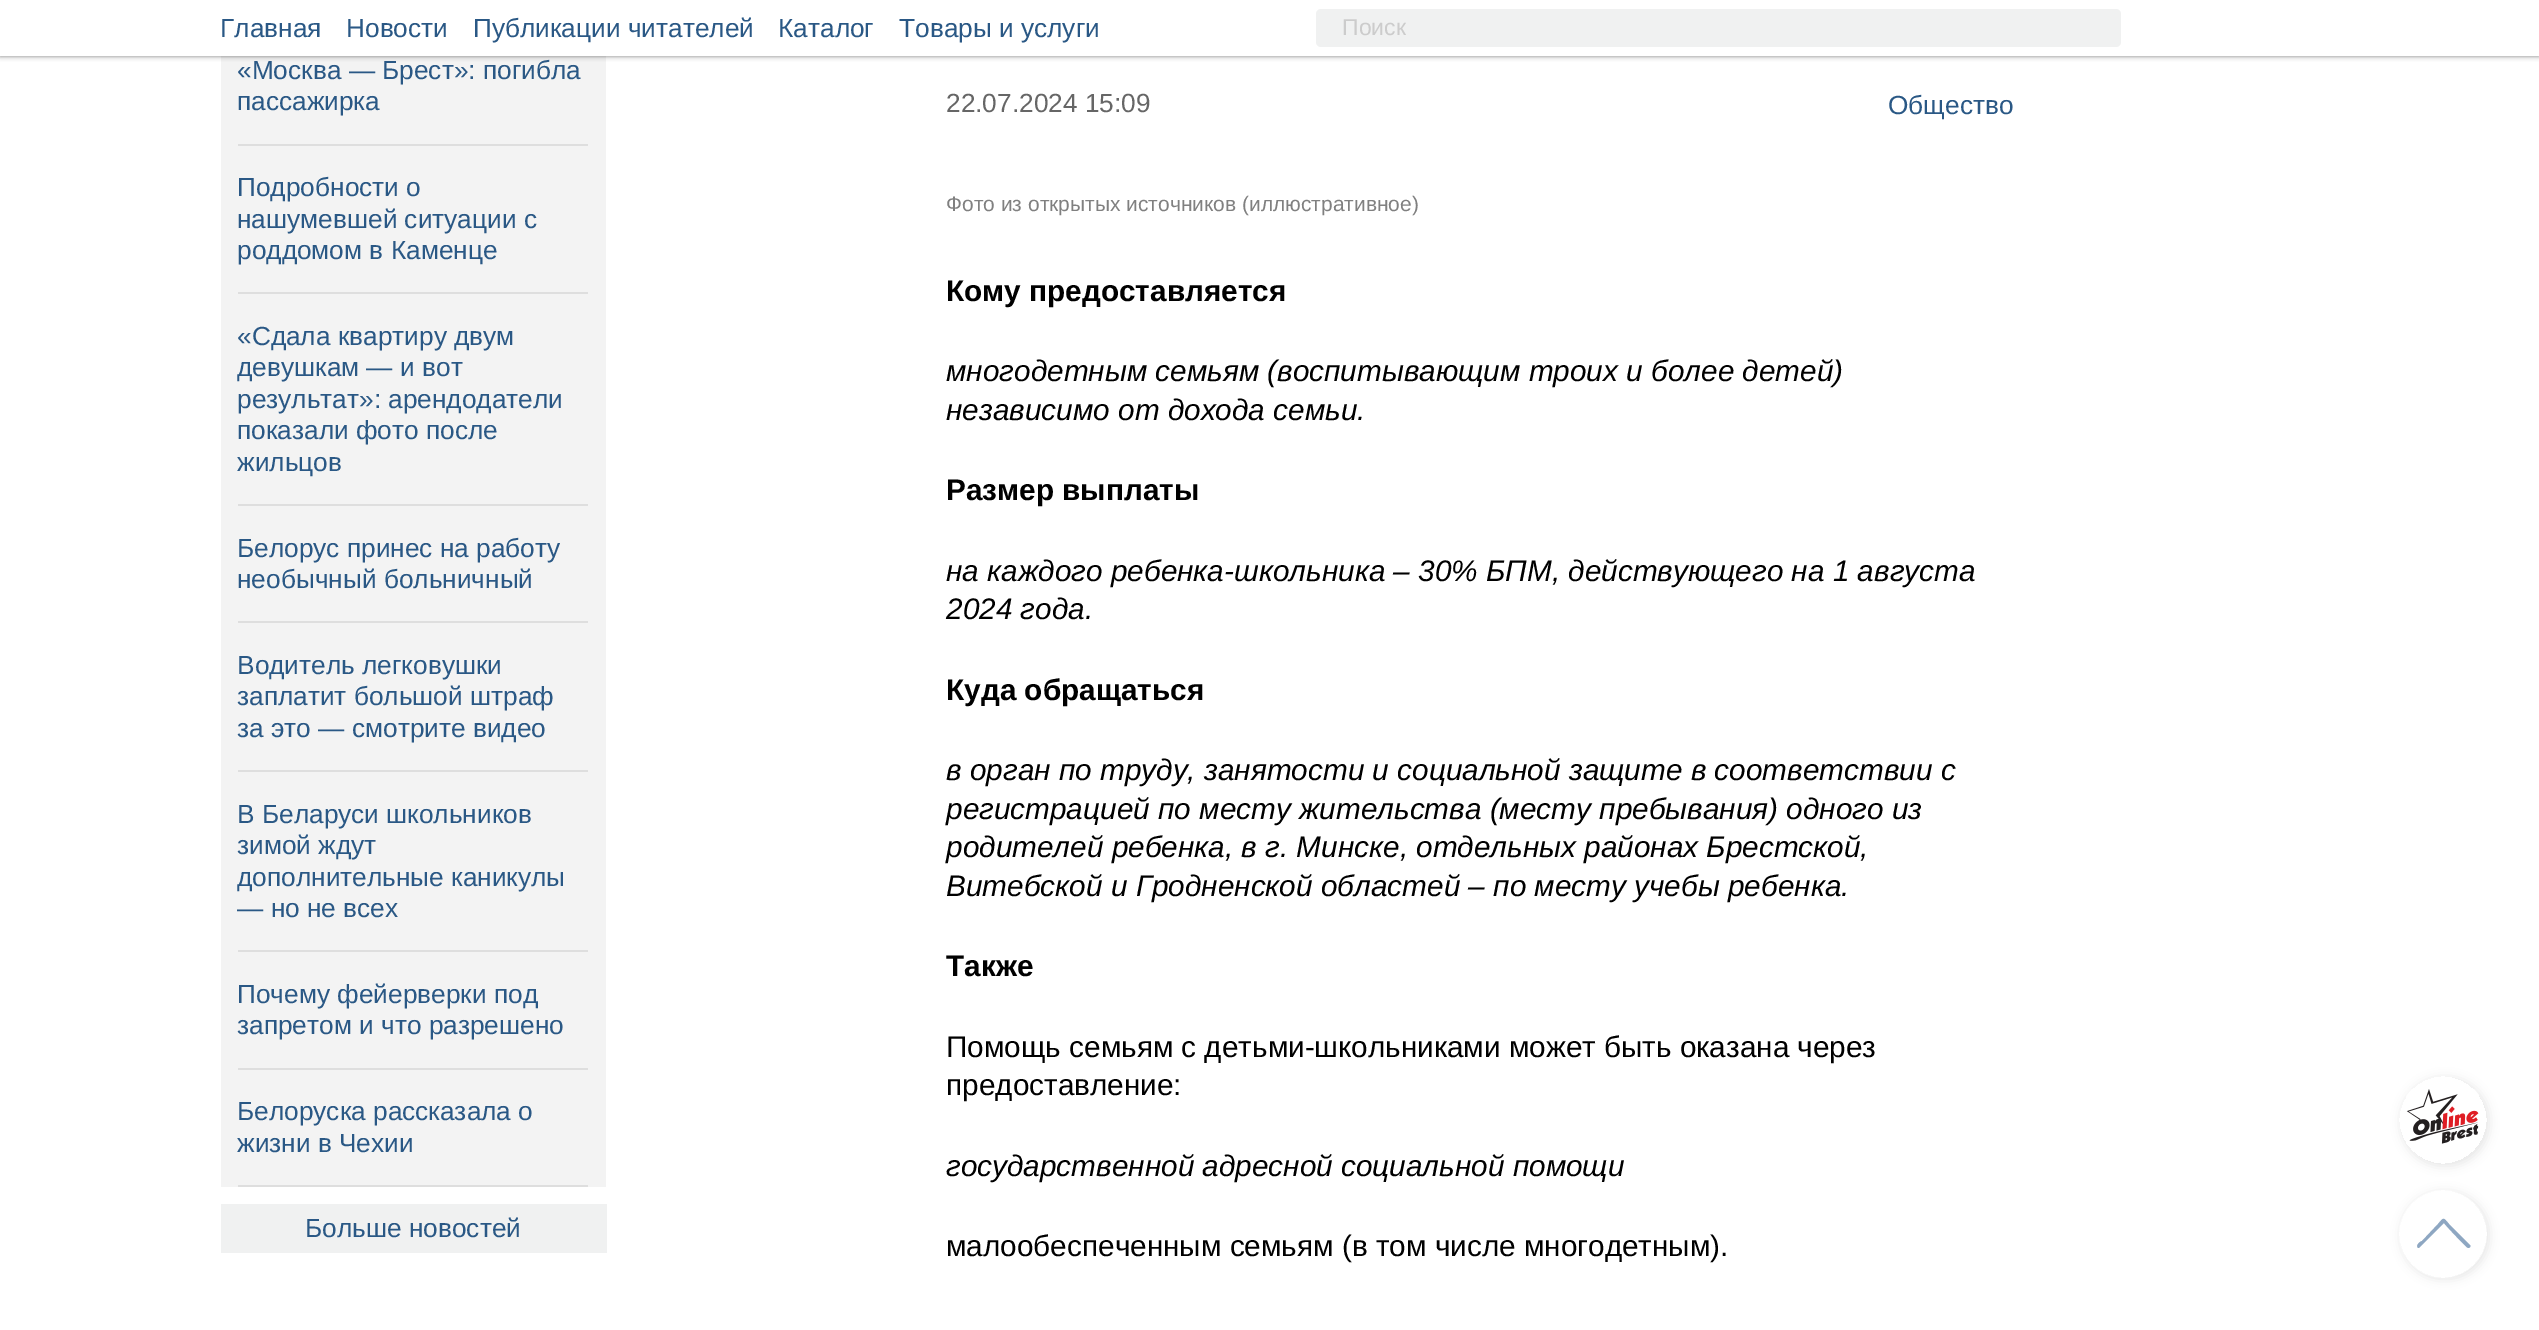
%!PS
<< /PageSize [2539 1330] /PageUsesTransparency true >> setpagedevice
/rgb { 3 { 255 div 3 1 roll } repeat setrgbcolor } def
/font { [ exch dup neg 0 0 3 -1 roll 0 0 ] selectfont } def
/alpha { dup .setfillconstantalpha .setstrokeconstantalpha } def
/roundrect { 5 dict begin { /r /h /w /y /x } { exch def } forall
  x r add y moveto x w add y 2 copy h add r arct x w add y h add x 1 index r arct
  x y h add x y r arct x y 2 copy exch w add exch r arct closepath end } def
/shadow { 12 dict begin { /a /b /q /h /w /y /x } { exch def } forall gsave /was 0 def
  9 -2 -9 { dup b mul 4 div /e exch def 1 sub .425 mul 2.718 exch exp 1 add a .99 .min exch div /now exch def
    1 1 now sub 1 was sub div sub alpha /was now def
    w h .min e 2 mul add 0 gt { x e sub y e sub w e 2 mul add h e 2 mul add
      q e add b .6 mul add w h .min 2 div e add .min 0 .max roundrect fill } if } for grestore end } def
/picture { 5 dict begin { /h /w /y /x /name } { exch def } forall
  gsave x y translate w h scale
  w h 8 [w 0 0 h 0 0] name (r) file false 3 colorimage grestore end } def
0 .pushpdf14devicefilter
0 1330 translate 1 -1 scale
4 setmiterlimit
255 255 255 rgb
0 0 2539 1330 rectfill
243 243 243 rgb
221 56 385 1131 rectfill
0 0 0 rgb
0 0 2539 56 0 2.5 0.5 shadow
255 255 255 rgb
0 0 2539 56 rectfill
240 241 241 rgb
1316 9 805 38 5 roundrect fill
[
  [238 144 350 2 222 222 222]
  [238 292 350 2 222 222 222]
  [238 504 350 2 222 222 222]
  [238 621 350 2 222 222 222]
  [238 770 350 2 222 222 222]
  [238 950 350 2 222 222 222]
  [238 1068 350 2 222 222 222]
  [238 1185 350 2 222 222 222]
  [221 1204 386 49 240 241 241]
] { aload pop rgb rectfill } forall
gsave
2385 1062 moveto 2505 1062 lineto 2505 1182 lineto 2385 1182 lineto closepath 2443 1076 moveto 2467.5 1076 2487 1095.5 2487 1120 curveto 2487 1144.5 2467.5 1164 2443 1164 curveto 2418.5 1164 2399 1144.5 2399 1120 curveto 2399 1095.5 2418.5 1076 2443 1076 curveto closepath eoclip newpath
0 0 0 rgb
2401 1078 88 88 44 5 0.1 shadow
grestore
(img/1.rgb) 2406 1089 73 55 picture
gsave
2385 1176 moveto 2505 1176 lineto 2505 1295 lineto 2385 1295 lineto closepath 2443 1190 moveto 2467.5 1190 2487 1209.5 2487 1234 curveto 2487 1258.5 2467.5 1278 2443 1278 curveto 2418.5 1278 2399 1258.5 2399 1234 curveto 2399 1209.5 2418.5 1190 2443 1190 curveto closepath eoclip newpath
0 0 0 rgb
2401 1192 88 87 43.5 5 0.1 shadow
grestore
0.6 alpha
255 255 255 rgb
2443 1190 moveto 2467 1190 2487 1210 2487 1234 curveto 2487 1258 2467 1278 2443 1278 curveto 2419 1278 2399 1258 2399 1234 curveto 2399 1210 2419 1190 2443 1190 curveto closepath fill
1 alpha
142 167 194 rgb
2470 1245 moveto 2449 1224 lineto 2443 1217 2444 1217 2438 1224 curveto 2422 1241 lineto 2421 1241 2415 1245 2418 1248 curveto 2419 1248 lineto 2444 1223 lineto 2446 1226 2467 1248 2468 1248 curveto 2470 1248 2471 1246 2470 1245 curveto closepath eofill
/LiberationSans-Regular 26.25 font
42 88 133 rgb
[
  [(Главная) 220 37]
  [(Новости) 346 37]
  [(Публикации читателей) 473 37]
  [(Каталог) 778 37]
  [(Товары и услуги) 899 37]
] { aload pop moveto show } forall
/LiberationSans-Regular 23 font
204 204 204 rgb
1342 35 moveto (Поиск) show
/LiberationSans-Regular 26.25 font
42 88 133 rgb
[
  [(«Москва — Брест»: погибла) 237 79]
  [(пассажирка) 237 110]
  [(Подробности о) 237 196]
  [(нашумевшей ситуации с) 237 228]
  [(роддомом в Каменце) 237 259]
  [(«Сдала квартиру двум) 237 345]
  [(девушкам — и вот) 237 376]
  [(результат»: арендодатели) 237 408]
  [(показали фото после) 237 439]
  [(жильцов) 237 471]
  [(Белорус принес на работу) 237 557]
  [(необычный больничный) 237 588]
  [(Водитель легковушки) 237 674]
  [(заплатит большой штраф) 237 705]
  [(за это — смотрите видео) 237 737]
  [(В Беларуси школьников) 237 823]
  [(зимой ждут) 237 854]
  [(дополнительные каникулы) 237 886]
  [(— но не всех) 237 917]
  [(Почему фейерверки под) 237 1003]
  [(запретом и что разрешено) 237 1034]
  [(Белоруска рассказала о) 237 1120]
  [(жизни в Чехии) 237 1152]
  [(Больше новостей) 305 1237]
] { aload pop moveto show } forall
102 102 102 rgb
946 112 moveto (22.07.2024 15:09) show
42 88 133 rgb
1888 114 moveto (Общество) show
/LiberationSans-Regular 21 font
128 128 128 rgb
946 211 moveto (Фото из открытых источников \(иллюстративное\)) show
/LiberationSans-Bold 29.75 font
0 0 0 rgb
946 301 moveto (Кому предоставляется) show
/LiberationSans-Italic 29.75 font
946 381 moveto (многодетным семьям \(воспитывающим троих и более детей\)) show
946 420 moveto (независимо от дохода семьи.) show
/LiberationSans-Bold 29.75 font
946 500 moveto (Размер выплаты) show
/LiberationSans-Italic 29.75 font
946 581 moveto (на каждого ребенка-школьника – 30% БПМ, действующего на 1 августа) show
946 619 moveto (2024 года.) show
/LiberationSans-Bold 29.75 font
946 700 moveto (Куда обращаться) show
/LiberationSans-Italic 29.75 font
[
  [(в орган по труду, занятости и социальной защите в соответствии с) 946 780]
  [(регистрацией по месту жительства \(месту пребывания\) одного из) 946 819]
  [(родителей ребенка, в г. Минске, отдельных районах Брестской,) 946 857]
  [(Витебской и Гродненской областей – по месту учебы ребенка.) 946 896]
] { aload pop moveto show } forall
/LiberationSans-Bold 29.75 font
946 976 moveto (Также) show
/LiberationSans-Regular 29.75 font
946 1057 moveto (Помощь семьям с детьми-школьниками может быть оказана через) show
946 1095 moveto (предоставление:) show
/LiberationSans-Italic 29.75 font
946 1176 moveto (государственной адресной социальной помощи) show
/LiberationSans-Regular 29.75 font
946 1256 moveto (малообеспеченным семьям \(в том числе многодетным\).) show
.poppdf14devicefilter showpage
